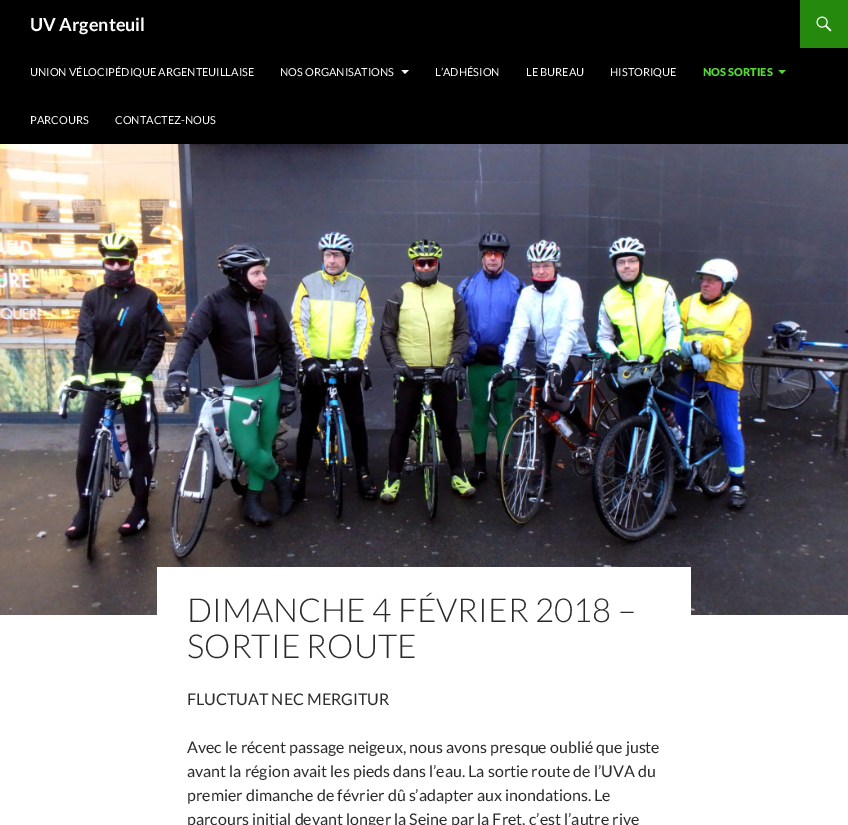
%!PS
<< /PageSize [848 825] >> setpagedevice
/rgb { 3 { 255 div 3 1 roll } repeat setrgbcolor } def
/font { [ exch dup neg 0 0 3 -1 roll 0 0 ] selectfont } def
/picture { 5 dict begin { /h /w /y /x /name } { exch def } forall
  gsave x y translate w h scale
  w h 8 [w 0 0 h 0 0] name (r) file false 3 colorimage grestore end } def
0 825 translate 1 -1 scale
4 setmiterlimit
255 255 255 rgb
0 0 848 825 rectfill
0 0 0 rgb
0 0 848 144 rectfill
36 137 13 rgb
800 0 48 48 rectfill
(img/1.rgb) 816 16 16 16 picture
255 255 255 rgb
401.5 70 moveto 405 74 lineto 409 70 lineto closepath fill
85 215 55 rgb
778.5 70 moveto 782 74 lineto 786 70 lineto closepath fill
(img/2.rgb) 0 144 848 471 picture
255 255 255 rgb
157 567 534 48 rectfill
/Lato-Bold 18 font
30 31 moveto (UV Argenteuil) show
/Lato-Regular 11 font
[
  [(UNION VÉLOCIPÉDIQUE ARGENTEUILLAISE) 30 76]
  [(NOS ORGANISATIONS) 280 76]
  [(L’ADHÉSION) 435 76]
  [(LE BUREAU) 526 76]
  [(HISTORIQUE) 610 76]
] { aload pop moveto show } forall
/Lato-Black 11 font
85 215 55 rgb
703 76 moveto (NOS SORTIES) show
/Lato-Regular 11 font
255 255 255 rgb
30 124 moveto (PARCOURS) show
115 124 moveto (CONTACTEZ-NOUS) show
/Lato-Light 33 font
43 43 43 rgb
187 622 moveto (DIMANCHE 4 FÉVRIER 2018 –) show
187 658 moveto (SORTIE ROUTE) show
/Lato-Regular 16 font
[
  [(FLUCTUAT NEC MERGITUR) 187 705]
  [(Avec le récent passage neigeux, nous avons presque oublié que juste) 187 753]
  [(avant la région avait les pieds dans l’eau. La sortie route de l’UVA du) 187 777]
  [(premier dimanche de février dû s’adapter aux inondations. Le) 187 801]
  [(parcours initial devant longer la Seine par la Fret, c’est l’autre rive) 187 825]
] { aload pop moveto show } forall
showpage
